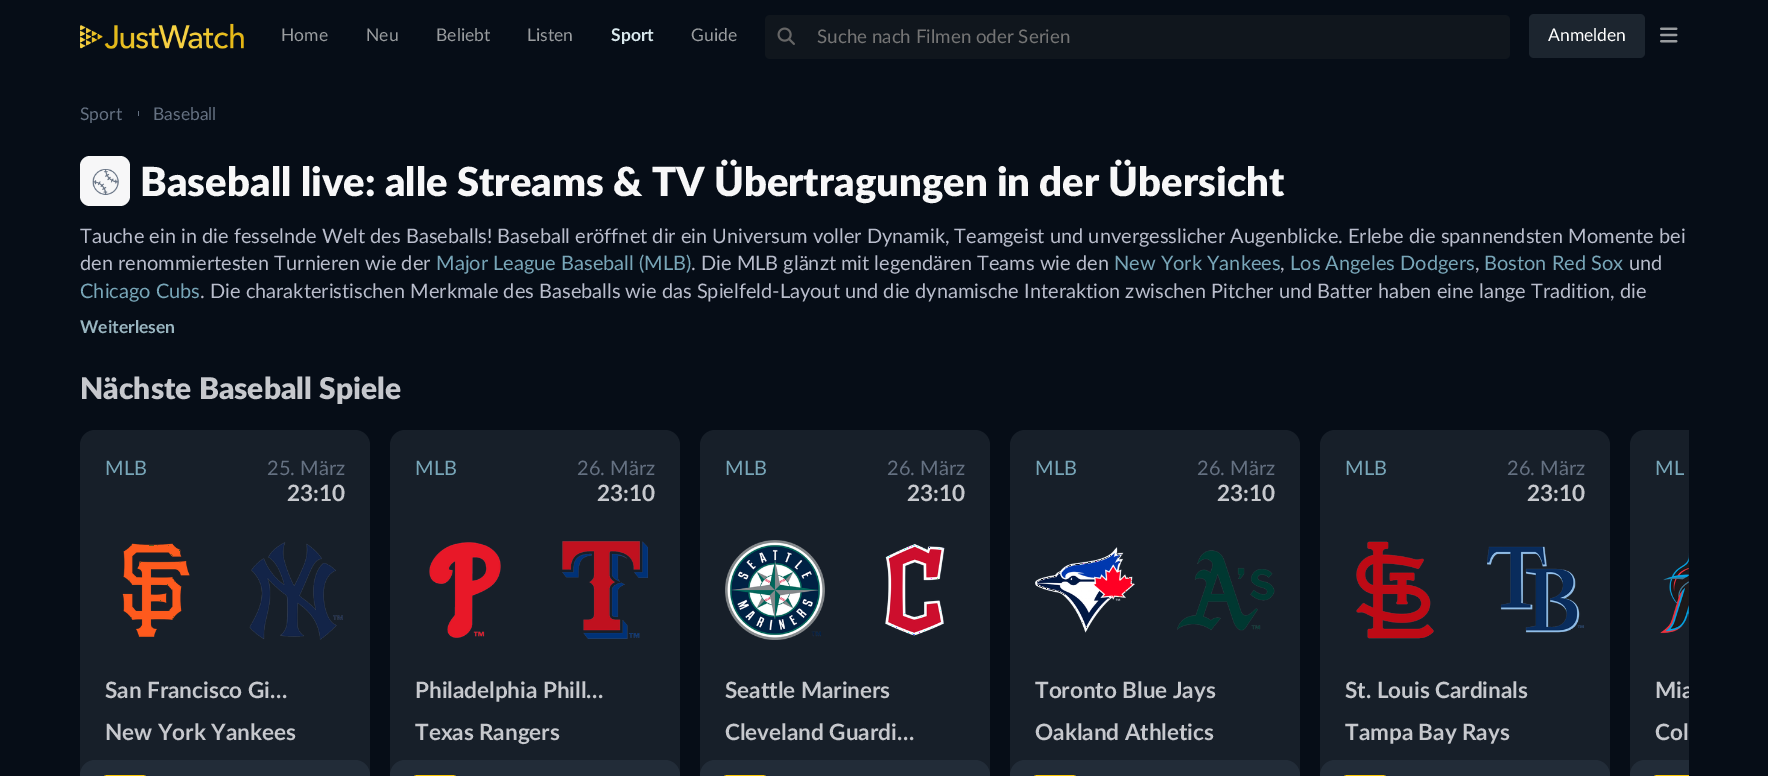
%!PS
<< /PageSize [1768 776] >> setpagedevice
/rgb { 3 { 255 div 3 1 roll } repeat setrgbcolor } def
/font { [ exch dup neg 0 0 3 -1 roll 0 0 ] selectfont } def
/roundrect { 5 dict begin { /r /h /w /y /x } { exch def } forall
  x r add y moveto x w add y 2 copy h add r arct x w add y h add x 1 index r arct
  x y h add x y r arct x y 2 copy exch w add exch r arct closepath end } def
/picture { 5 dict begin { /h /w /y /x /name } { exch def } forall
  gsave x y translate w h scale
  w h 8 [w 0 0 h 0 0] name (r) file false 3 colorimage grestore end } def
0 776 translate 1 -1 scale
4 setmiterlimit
6 13 23 rgb
0 0 1768 776 rectfill
(img/1.rgb) 80 23 164 26 picture
16 22 29 rgb
765 15 745 44 5 roundrect fill
(img/2.rgb) 777 27 18 18 picture
28 37 47 rgb
1529 14 116 44 5 roundrect fill
(img/3.rgb) 1660 27 18 16 picture
101 113 130 rgb
138 111 1 5 rectfill
247 247 248 rgb
80 156 50 50 10 roundrect fill
(img/4.rgb) 92 169 27 26 picture
23 31 41 rgb
80 430 290 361 15 roundrect fill
(img/5.rgb) 122 543 68 94 picture
(img/6.rgb) 249 542 94 98 picture
34 44 56 rgb
80 760 290 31 15 roundrect fill
251 197 0 rgb
100 775 50 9 8 roundrect fill
23 31 41 rgb
390 430 290 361 15 roundrect fill
(img/7.rgb) 429 542 72 96 picture
(img/8.rgb) 562 541 86 98 picture
34 44 56 rgb
390 760 290 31 15 roundrect fill
251 197 0 rgb
410 775 50 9 8 roundrect fill
23 31 41 rgb
700 430 290 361 15 roundrect fill
(img/9.rgb) 725 540 100 100 picture
(img/10.rgb) 885 543 60 93 picture
34 44 56 rgb
700 760 290 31 15 roundrect fill
251 197 0 rgb
720 775 50 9 8 roundrect fill
23 31 41 rgb
1010 430 290 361 15 roundrect fill
(img/11.rgb) 1035 547 100 86 picture
(img/12.rgb) 1177 550 98 81 picture
34 44 56 rgb
1010 760 290 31 15 roundrect fill
251 197 0 rgb
1030 775 50 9 8 roundrect fill
23 31 41 rgb
1320 430 290 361 15 roundrect fill
(img/13.rgb) 1356 541 78 98 picture
(img/14.rgb) 1487 546 97 87 picture
34 44 56 rgb
1320 760 290 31 15 roundrect fill
251 197 0 rgb
1340 775 50 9 8 roundrect fill
23 31 41 rgb
1645 430 moveto 1689 430 lineto 1689 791 lineto 1645 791 lineto 1636.5 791 1630 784.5 1630 776 curveto 1630 445 lineto 1630 436.5 1636.5 430 1645 430 curveto closepath fill
(img/15.rgb) 1660 553 29 81 picture
34 44 56 rgb
1645 760 moveto 1689 760 lineto 1689 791 lineto 1645 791 lineto 1636.5 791 1630 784.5 1630 776 curveto 1630 775 lineto 1630 766.5 1636.5 760 1645 760 curveto closepath fill
251 197 0 rgb
1658 775 moveto 1689 775 lineto 1689 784 lineto 1658 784 lineto 1653.5 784 1650 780.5 1650 776 curveto 1650 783 lineto 1650 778.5 1653.5 775 1658 775 curveto closepath fill
/Lato-Regular 17.5 font
153 156 159 rgb
[
  [(Home) 281 41]
  [(Neu) 366 41]
  [(Beliebt) 436 41]
  [(Listen) 527 41]
] { aload pop moveto show } forall
/Lato-Bold 17.5 font
217 232 237 rgb
611 41 moveto (Sport) show
/Lato-Regular 17.5 font
153 156 159 rgb
691 41 moveto (Guide) show
/Lato-Regular 18.75 font
117 117 117 rgb
817 43 moveto (Suche nach Filmen oder Serien) show
/Lato-Regular 17.5 font
255 255 255 rgb
1548 41 moveto (Anmelden) show
101 113 130 rgb
80 120 moveto (Sport) show
153 120 moveto (Baseball) show
/Lato-Black 40 font
247 247 248 rgb
140 196 moveto (Baseball live: alle Streams & TV Übertragungen in der Übersicht) show
/Lato-Regular 20 font
185 189 204 rgb
80 243 moveto (Tauche ein in die fesselnde Welt des Baseballs! Baseball eröffnet dir ein Universum voller Dynamik, Teamgeist und unvergesslicher Augenblicke. Erlebe die spannendsten Momente bei) show
80 270 moveto (den renommiertesten Turnieren wie der) show
120 166 184 rgb
436 270 moveto (Major League Baseball \(MLB\)) show
185 189 204 rgb
691 270 moveto (. Die MLB glänzt mit legendären Teams wie den) show
120 166 184 rgb
1114 270 moveto (New York Yankees) show
185 189 204 rgb
1280 270 moveto (,) show
120 166 184 rgb
1290 270 moveto (Los Angeles Dodgers) show
185 189 204 rgb
1475 270 moveto (,) show
120 166 184 rgb
1484 270 moveto (Boston Red Sox) show
185 189 204 rgb
1629 270 moveto (und) show
120 166 184 rgb
80 298 moveto (Chicago Cubs) show
185 189 204 rgb
200 298 moveto (. Die charakteristischen Merkmale des Baseballs wie das Spielfeld-Layout und die dynamische Interaktion zwischen Pitcher und Batter haben eine lange Tradition, die) show
/Lato-Bold 17.5 font
153 181 192 rgb
80 333 moveto (Weiterlesen) show
/Lato-Black 30 font
198 200 205 rgb
80 399 moveto (Nächste Baseball Spiele) show
/Lato-Regular 20 font
120 166 184 rgb
105 475 moveto (MLB) show
101 113 130 rgb
267 475 moveto (25. März) show
/Lato-Bold 22.5 font
198 200 205 rgb
[
  [(23:10) 287 501]
  [(San Francisco Gi…) 105 698]
  [(New York Yankees) 105 740]
] { aload pop moveto show } forall
/Lato-Regular 20 font
120 166 184 rgb
415 475 moveto (MLB) show
101 113 130 rgb
577 475 moveto (26. März) show
/Lato-Bold 22.5 font
198 200 205 rgb
[
  [(23:10) 597 501]
  [(Philadelphia Phill…) 415 698]
  [(Texas Rangers) 415 740]
] { aload pop moveto show } forall
/Lato-Regular 20 font
120 166 184 rgb
725 475 moveto (MLB) show
101 113 130 rgb
887 475 moveto (26. März) show
/Lato-Bold 22.5 font
198 200 205 rgb
[
  [(23:10) 907 501]
  [(Seattle Mariners) 725 698]
  [(Cleveland Guardi…) 725 740]
] { aload pop moveto show } forall
/Lato-Regular 20 font
120 166 184 rgb
1035 475 moveto (MLB) show
101 113 130 rgb
1197 475 moveto (26. März) show
/Lato-Bold 22.5 font
198 200 205 rgb
[
  [(23:10) 1217 501]
  [(Toronto Blue Jays) 1035 698]
  [(Oakland Athletics) 1035 740]
] { aload pop moveto show } forall
/Lato-Regular 20 font
120 166 184 rgb
1345 475 moveto (MLB) show
101 113 130 rgb
1507 475 moveto (26. März) show
/Lato-Bold 22.5 font
198 200 205 rgb
[
  [(23:10) 1527 501]
  [(St. Louis Cardinals) 1345 698]
  [(Tampa Bay Rays) 1345 740]
] { aload pop moveto show } forall
/Lato-Regular 20 font
120 166 184 rgb
1655 475 moveto (ML) show
gsave
1655 675 34 28 rectclip
/Lato-Bold 22.5 font
198 200 205 rgb
1655 698 moveto (Mia) show
grestore
/Lato-Bold 22.5 font
198 200 205 rgb
1655 740 moveto (Col) show
showpage
